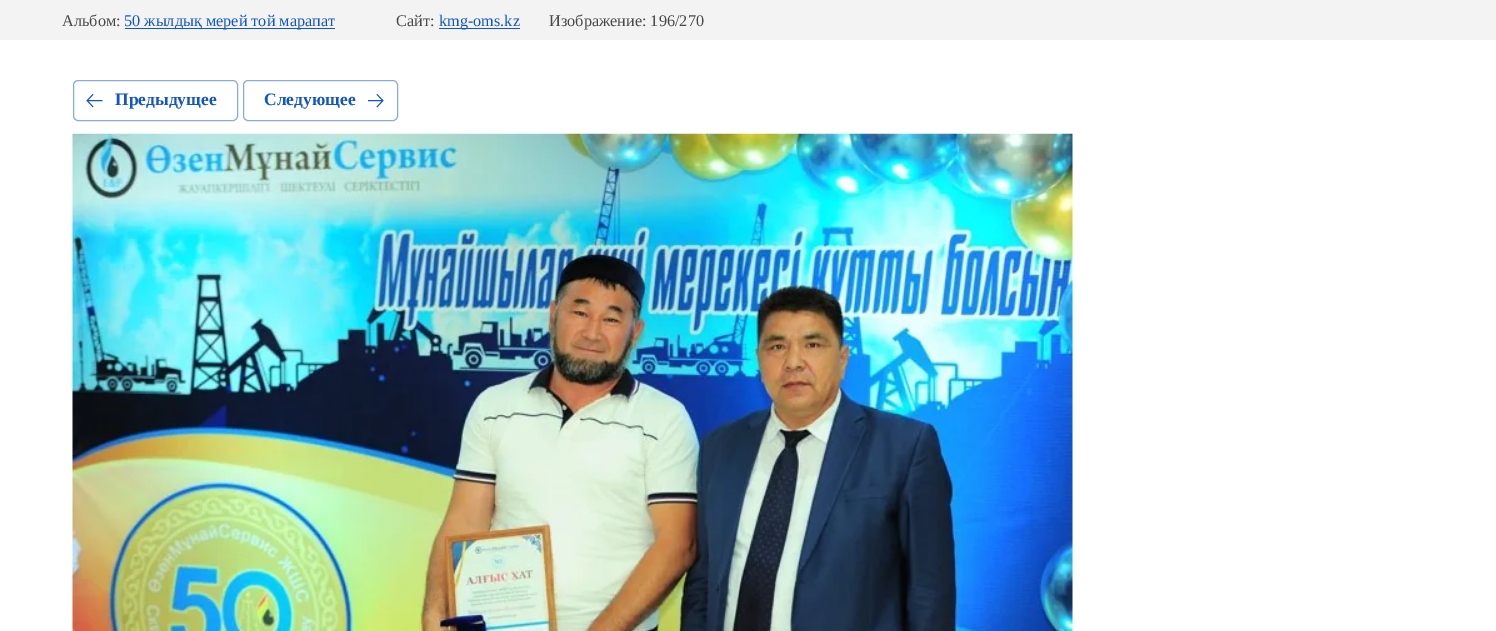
%!PS
<< /PageSize [1496 631] >> setpagedevice
/rgb { 3 { 255 div 3 1 roll } repeat setrgbcolor } def
/font { [ exch dup neg 0 0 3 -1 roll 0 0 ] selectfont } def
/roundrect { 5 dict begin { /r /h /w /y /x } { exch def } forall
  x r add y moveto x w add y 2 copy h add r arct x w add y h add x 1 index r arct
  x y h add x y r arct x y 2 copy exch w add exch r arct closepath end } def
/picture { 5 dict begin { /h /w /y /x /name } { exch def } forall
  gsave x y translate w h scale
  w h 8 [w 0 0 h 0 0] name (r) file false 3 colorimage grestore end } def
0 631 translate 1 -1 scale
4 setmiterlimit
255 255 255 rgb
0 0 1496 631 rectfill
[
  [0 0 1496 40 243 243 243]
  [125 28 210 1 17 85 204]
  [439 28 81 1 17 85 204]
] { aload pop rgb rectfill } forall
136 170 230 rgb
73.5 80.5 164 40 4.5 roundrect stroke
(img/1.rgb) 86 94 17 14 picture
243.5 80.5 154 40 4.5 roundrect stroke
(img/2.rgb) 368 94 16 14 picture
(img/3.rgb) 72 133 1001 498 picture
/LiberationSerif-Regular 16.25 font
72 72 72 rgb
62 26 moveto (Альбом:) show
17 85 204 rgb
124 26 moveto (50 жылдық мерей той марапат) show
72 72 72 rgb
396 26 moveto (Сайт:) show
17 85 204 rgb
439 26 moveto (kmg-oms.kz) show
72 72 72 rgb
549 26 moveto (Изображение: 196/270) show
/LiberationSerif-Bold 17.5 font
17 85 204 rgb
115 105 moveto (Предыдущее) show
264 105 moveto (Следующее) show
showpage
